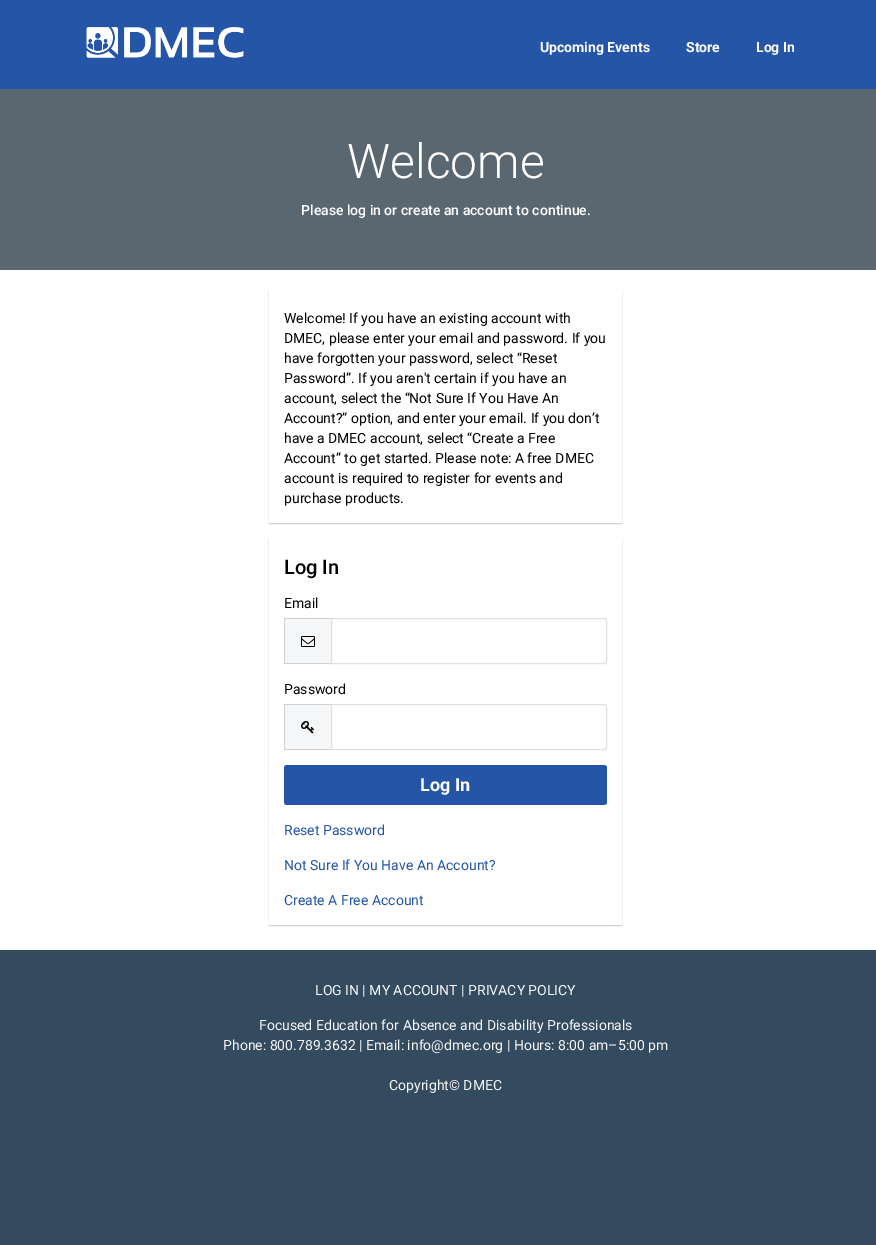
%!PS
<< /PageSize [876 1245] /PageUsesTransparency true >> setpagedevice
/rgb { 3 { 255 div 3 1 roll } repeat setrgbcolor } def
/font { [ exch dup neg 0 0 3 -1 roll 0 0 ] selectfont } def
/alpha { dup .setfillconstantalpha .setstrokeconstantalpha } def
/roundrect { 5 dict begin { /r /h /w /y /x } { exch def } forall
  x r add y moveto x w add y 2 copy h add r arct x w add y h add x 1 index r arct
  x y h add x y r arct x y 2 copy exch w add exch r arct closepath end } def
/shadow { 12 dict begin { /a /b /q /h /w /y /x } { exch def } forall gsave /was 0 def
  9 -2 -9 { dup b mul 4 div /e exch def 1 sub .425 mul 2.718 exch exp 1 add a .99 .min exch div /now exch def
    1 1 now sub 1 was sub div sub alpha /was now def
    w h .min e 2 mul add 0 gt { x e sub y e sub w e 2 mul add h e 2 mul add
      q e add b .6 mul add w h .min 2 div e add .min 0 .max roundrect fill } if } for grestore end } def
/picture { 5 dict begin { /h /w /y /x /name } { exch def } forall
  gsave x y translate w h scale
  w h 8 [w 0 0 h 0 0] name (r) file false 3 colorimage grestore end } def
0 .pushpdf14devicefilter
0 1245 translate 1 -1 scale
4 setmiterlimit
52 74 95 rgb
0 0 876 1245 rectfill
255 255 255 rgb
0 270 876 680 rectfill
36 85 166 rgb
0 0 876 89 rectfill
(img/1.rgb) 86 27 158 31 picture
91 103 112 rgb
0 89 876 181 rectfill
gsave
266 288 moveto 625 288 lineto 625 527 lineto 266 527 lineto closepath 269 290 moveto 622 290 lineto 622 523 lineto 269 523 lineto closepath eoclip newpath
37 56 88 rgb
269 291 353 233 0 0.5 0.25 shadow
grestore
gsave
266 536 moveto 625 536 lineto 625 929 lineto 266 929 lineto closepath 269 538 moveto 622 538 lineto 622 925 lineto 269 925 lineto closepath eoclip newpath
37 56 88 rgb
269 539 353 387 0 0.5 0.25 shadow
grestore
[
  [285 619 46 44 245 246 247]
  [284 618 47 1 207 208 210]
  [284 663 47 1 207 208 210]
  [284 618 1 46 207 208 210]
] { aload pop rgb rectfill } forall
(img/2.rgb) 301 636 14 11 picture
224 224 224 rgb
331.5 618.5 moveto 604 618.5 lineto 605.5 618.5 606.5 619.5 606.5 621 curveto 606.5 661 lineto 606.5 662.5 605.5 663.5 604 663.5 curveto 331.5 663.5 lineto closepath stroke
[
  [285 705 46 44 245 246 247]
  [284 704 47 1 207 208 210]
  [284 749 47 1 207 208 210]
  [284 704 1 46 207 208 210]
] { aload pop rgb rectfill } forall
(img/3.rgb) 301 721 14 13 picture
224 224 224 rgb
331.5 704.5 moveto 604 704.5 lineto 605.5 704.5 606.5 705.5 606.5 707 curveto 606.5 747 lineto 606.5 748.5 605.5 749.5 604 749.5 curveto 331.5 749.5 lineto closepath stroke
36 85 166 rgb
284 765 323 40 3 roundrect fill
/Roboto-Bold 14 font
255 255 255 rgb
[
  [(Upcoming Events) 540 52]
  [(Store) 686 52]
  [(Log In) 756 52]
] { aload pop moveto show } forall
/Roboto-Light 48 font
347 178 moveto (Welcome) show
/Roboto-Medium 14 font
301 215 moveto (Please log in or create an account to continue.) show
/Roboto-Regular 14 font
0 0 0 rgb
[
  [(Welcome! If you have an existing account with) 284 323]
  [(DMEC, please enter your email and password. If you) 284 343]
  [(have forgotten your password, select “Reset) 284 363]
  [(Password”. If you aren't certain if you have an) 284 383]
  [(account, select the “Not Sure If You Have An) 284 403]
  [(Account?” option, and enter your email. If you don’t) 284 423]
  [(have a DMEC account, select “Create a Free) 284 443]
  [(Account” to get started. Please note: A free DMEC) 284 463]
  [(account is required to register for events and) 284 483]
  [(purchase products.) 284 503]
] { aload pop moveto show } forall
/Roboto-Medium 20 font
284 574 moveto (Log In) show
/Roboto-Regular 14 font
284 608 moveto (Email) show
284 694 moveto (Password) show
/Roboto-Bold 18 font
255 255 255 rgb
420 791 moveto (Log In) show
/Roboto-Regular 14 font
36 85 166 rgb
[
  [(Reset Password) 284 835]
  [(Not Sure If You Have An Account?) 284 870]
  [(Create A Free Account) 284 905]
] { aload pop moveto show } forall
245 246 247 rgb
[
  [(LOG IN | MY ACCOUNT | PRIVACY POLICY) 315 995]
  [(Focused Education for Absence and Disability Professionals) 259 1030]
  [(Phone: 800.789.3632 | Email: info@dmec.org | Hours: 8:00 am–5:00 pm) 223 1050]
  [(Copyright© DMEC) 389 1090]
] { aload pop moveto show } forall
.poppdf14devicefilter showpage
